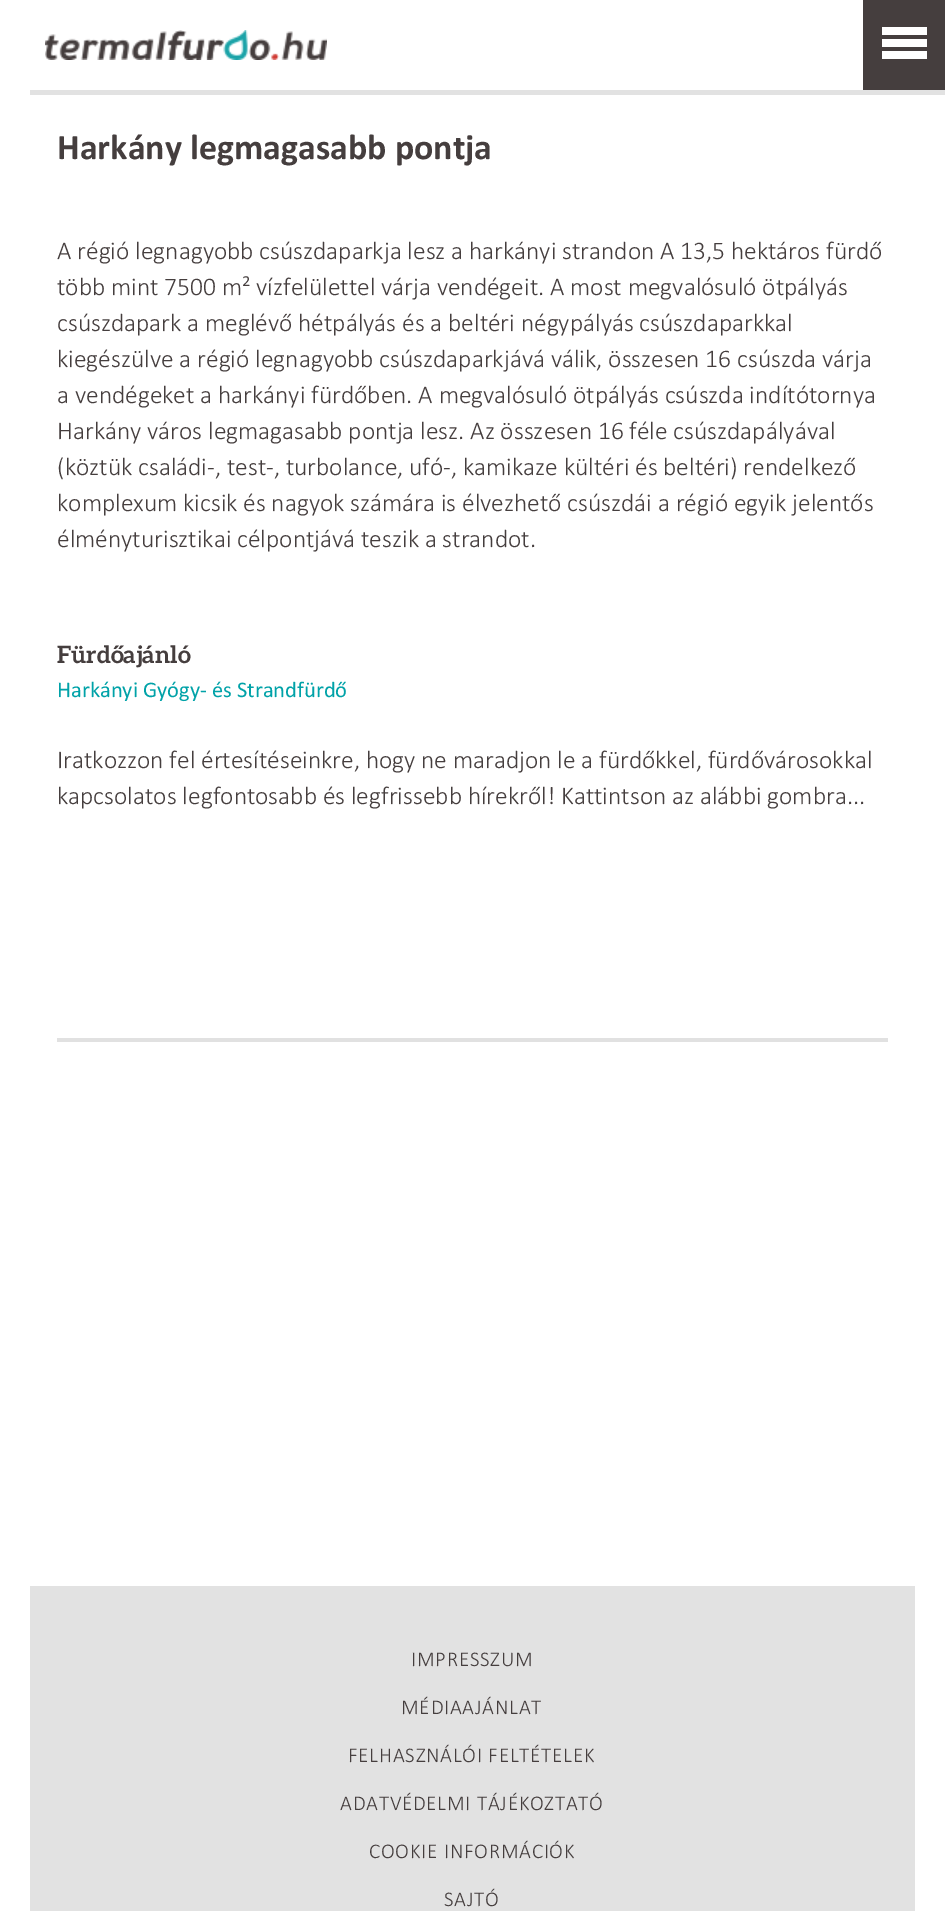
%!PS
<< /PageSize [945 1911] >> setpagedevice
/rgb { 3 { 255 div 3 1 roll } repeat setrgbcolor } def
/font { [ exch dup neg 0 0 3 -1 roll 0 0 ] selectfont } def
/picture { 5 dict begin { /h /w /y /x /name } { exch def } forall
  gsave x y translate w h scale
  w h 8 [w 0 0 h 0 0] name (r) file false 3 colorimage grestore end } def
0 1911 translate 1 -1 scale
4 setmiterlimit
255 255 255 rgb
0 0 945 1911 rectfill
226 226 226 rgb
30 90 915 5 rectfill
(img/1.rgb) 45 30 282 30 picture
[
  [863 0 82 90 69 62 62]
  [882 27 45 8 255 255 255]
  [882 39 45 8 255 255 255]
  [882 51 45 8 255 255 255]
  [57 1038 831 4 225 225 225]
  [30 1586 885 325 226 226 226]
] { aload pop rgb rectfill } forall
/Calibri-Bold 36 font
69 62 62 rgb
57 159 moveto (Harkány legmagasabb pontja) show
/Calibri-Light 25.5 font
[
  [(A régió legnagyobb csúszdaparkja lesz a harkányi strandon A 13,5 hektáros fürdő) 57 259]
  [(több mint 7500 m² vízfelülettel várja vendégeit. A most megvalósuló ötpályás) 57 295]
  [(csúszdapark a meglévő hétpályás és a beltéri négypályás csúszdaparkkal) 57 331]
  [(kiegészülve a régió legnagyobb csúszdaparkjává válik, összesen 16 csúszda várja) 57 367]
  [(a vendégeket a harkányi fürdőben. A megvalósuló ötpályás csúszda indítótornya) 57 403]
  [(Harkány város legmagasabb pontja lesz. Az összesen 16 féle csúszdapályával) 57 439]
  [(\(köztük családi-, test-, turbolance, ufó-, kamikaze kültéri és beltéri\) rendelkező) 57 475]
  [(komplexum kicsik és nagyok számára is élvezhető csúszdái a régió egyik jelentős) 57 511]
  [(élményturisztikai célpontjává teszik a strandot.) 57 547]
] { aload pop moveto show } forall
/Aleo-Bold 24 font
57 663 moveto (Fürdőajánló) show
/Calibri-Regular 22.5 font
0 162 168 rgb
57 697 moveto (Harkányi Gyógy- és Strandfürdő) show
/Calibri-Light 25.5 font
69 62 62 rgb
57 768 moveto (Iratkozzon fel értesítéseinkre, hogy ne maradjon le a fürdőkkel, fürdővárosokkal) show
57 804 moveto (kapcsolatos legfontosabb és legfrissebb hírekről! Kattintson az alábbi gombra...) show
/Calibri-Light 21 font
411 1666 moveto 0.75 0 (IMPRESSZUM) ashow
401 1714 moveto 0.75 0 (MÉDIAAJÁNLAT) ashow
348 1762 moveto 0.75 0 (FELHASZNÁLÓI FELTÉTELEK) ashow
340 1810 moveto 0.75 0 (ADATVÉDELMI TÁJÉKOZTATÓ) ashow
369 1858 moveto 0.75 0 (COOKIE INFORMÁCIÓK) ashow
444 1906 moveto 0.75 0 (SAJTÓ) ashow
showpage
